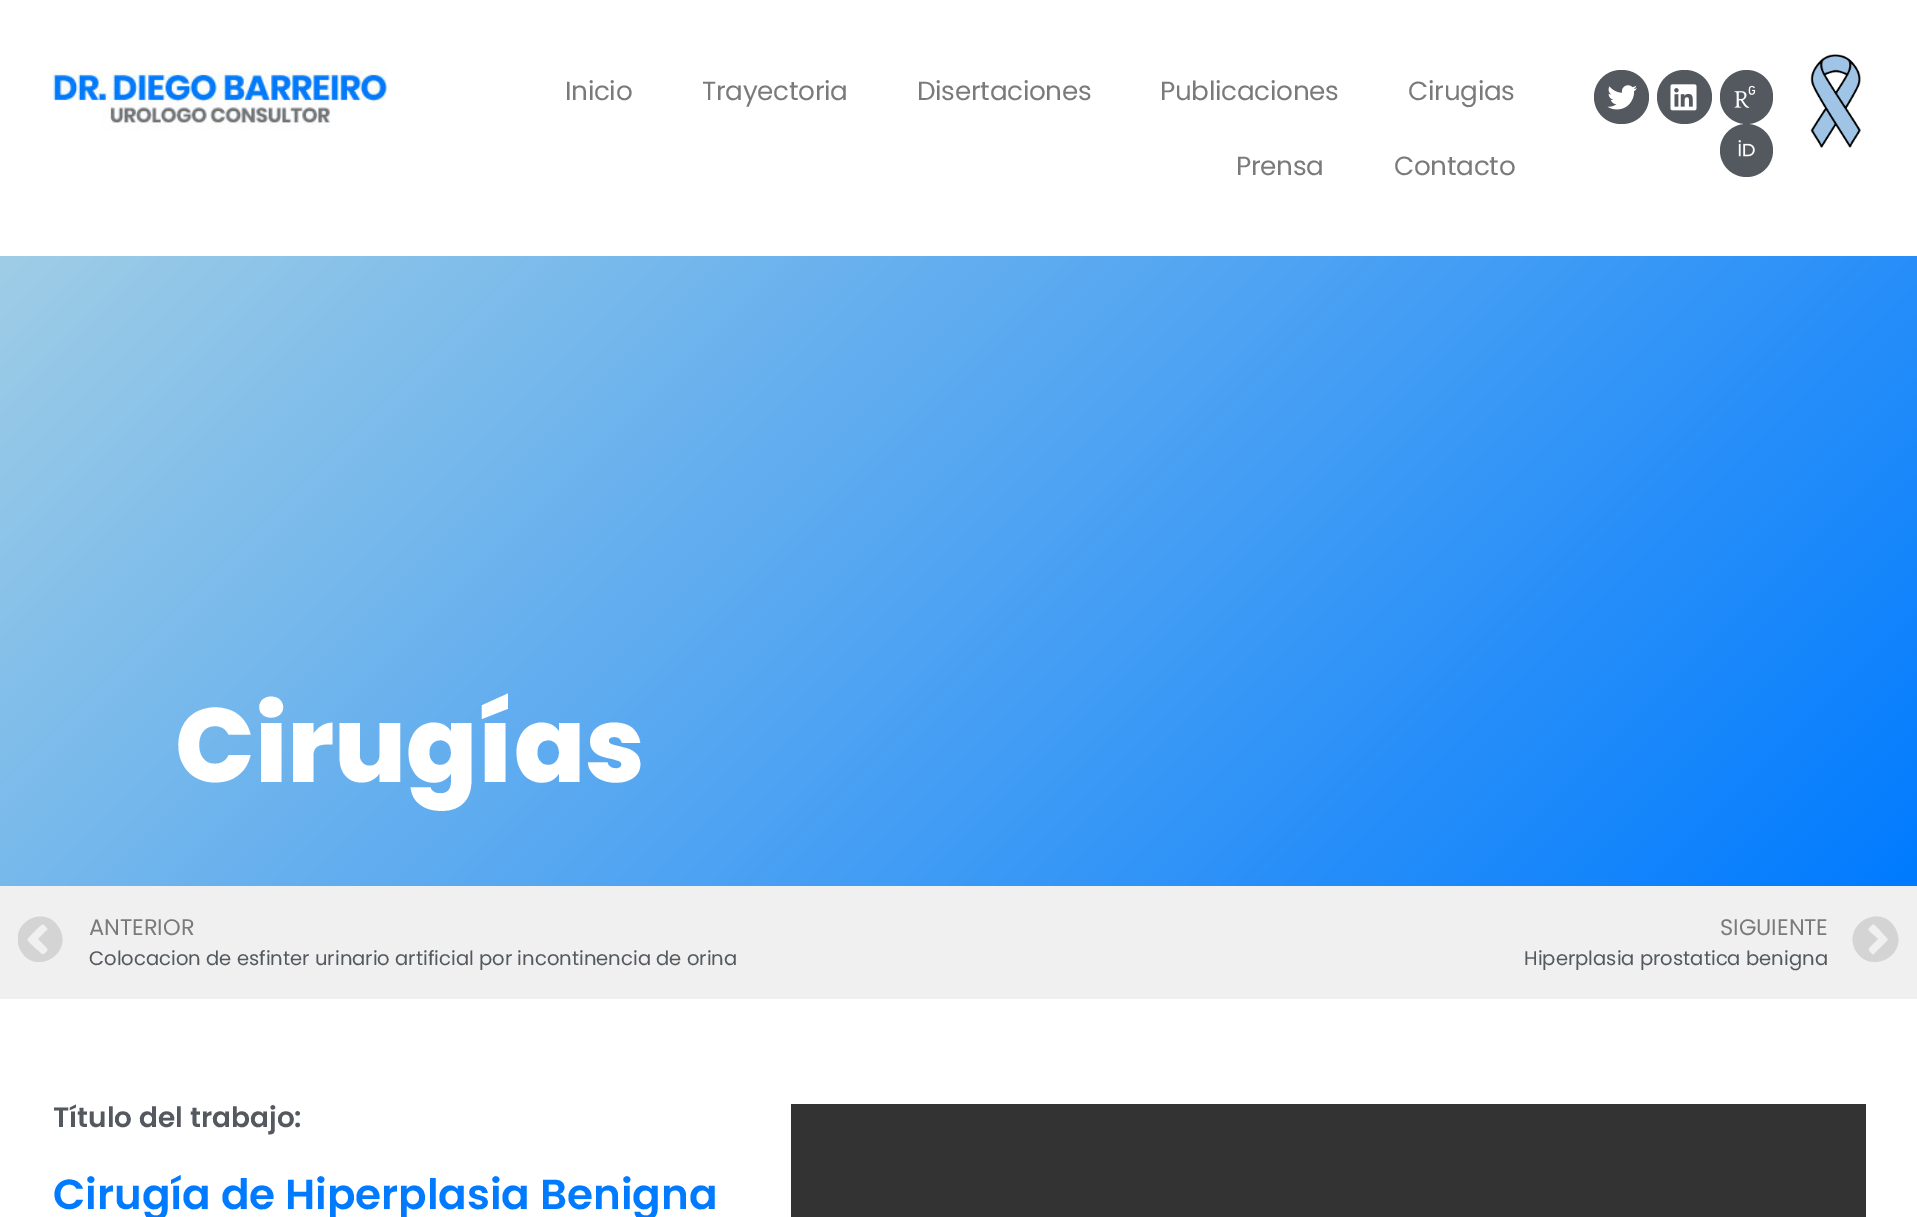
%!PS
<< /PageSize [1917 1217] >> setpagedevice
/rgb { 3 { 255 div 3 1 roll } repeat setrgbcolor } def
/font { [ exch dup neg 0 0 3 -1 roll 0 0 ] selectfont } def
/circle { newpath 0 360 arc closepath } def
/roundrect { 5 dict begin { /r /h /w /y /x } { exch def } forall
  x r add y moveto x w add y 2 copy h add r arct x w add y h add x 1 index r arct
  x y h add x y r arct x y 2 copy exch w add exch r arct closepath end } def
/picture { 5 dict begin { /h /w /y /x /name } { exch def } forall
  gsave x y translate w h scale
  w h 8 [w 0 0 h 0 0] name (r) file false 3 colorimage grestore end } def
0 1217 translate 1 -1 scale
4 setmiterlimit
255 255 255 rgb
0 0 1917 1217 rectfill
(img/1.rgb) 52 70 335 60 picture
84 89 95 rgb
1594 70 55 54 27 roundrect fill
(img/2.rgb) 1607 85 30 25 picture
1657 70 55 54 27 roundrect fill
(img/3.rgb) 1670 84 27 27 picture
1720 70 53 54 26.5 roundrect fill
(img/4.rgb) 1734 85 22 23 picture
1746.5 150.5 26.5 circle fill
(img/5.rgb) 1738 140 17 17 picture
(img/6.rgb) 1810 54 51 94 picture
gsave 0 256 moveto 1917 256 lineto 1917 886 lineto 0 886 lineto closepath clip newpath
<< /ShadingType 2 /ColorSpace /DeviceRGB /Coords [322 -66 1596 1208] /Extend [true true] /Function << /FunctionType 2 /Domain [0 1] /C0 [0.624 0.804 0.902] /C1 [0 0.482 1] /N 1 >> >> shfill grestore
240 240 240 rgb
0 886 1917 113 rectfill
gsave
18 903 941 79 rectclip
212 212 212 rgb
44 954 moveto 48 951 49 950 46 947 curveto 38 939 lineto 47 930 lineto 49 929 46 927 45 926 curveto 43 923 42 924 39 927 curveto 35 931 lineto 24 942 25 938 37 950 curveto 38 950 42 956 44 954 curveto closepath 59 928 moveto 74 954 35 976 21 951 curveto 6 925 44 902 59 928 curveto closepath fill
grestore
212 212 212 rgb
1874 954 moveto 1885 943 lineto 1889 939 1889 940 1885 936 curveto 1879 929 lineto 1875 926 1874 922 1871 926 curveto 1868 929 1867 929 1870 932 curveto 1878 939 lineto 1872 945 lineto 1869 948 1867 949 1870 952 curveto 1871 953 1873 956 1874 954 curveto closepath 1895 928 moveto 1910 954 1871 976 1856 951 curveto 1841 925 1880 902 1895 928 curveto closepath fill
51 51 51 rgb
791 1104 1075 113 rectfill
/Poppins-Regular 26.25 font
122 122 122 rgb
565 100 moveto -0.3 0 (Inicio) ashow
702 100 moveto -0.3 0 (Trayectoria) ashow
917 100 moveto -0.3 0 (Disertaciones) ashow
1160 100 moveto -0.3 0 (Publicaciones) ashow
1408 100 moveto -0.3 0 (Cirugias) ashow
1236 175 moveto -0.3 0 (Prensa) ashow
1394 175 moveto -0.3 0 (Contacto) ashow
/Poppins-ExtraBold 105 font
255 255 255 rgb
175 782 moveto (Cirugías) show
/Poppins-Regular 22.5 font
122 122 122 rgb
89 935 moveto (ANTERIOR) show
/Poppins-Regular 19.6 font
84 89 95 rgb
89 965 moveto (Colocacion de esfinter urinario artificial por incontinencia de orina) show
/Poppins-Regular 22.5 font
122 122 122 rgb
1720 935 moveto (SIGUIENTE) show
/Poppins-Regular 19.6 font
84 89 95 rgb
1524 965 moveto (Hiperplasia prostatica benigna) show
/Poppins-SemiBold 28 font
53 1127 moveto (Título del trabajo:) show
/Poppins-SemiBold 42 font
0 123 255 rgb
53 1209 moveto (Cirugía de Hiperplasia Benigna) show
showpage
